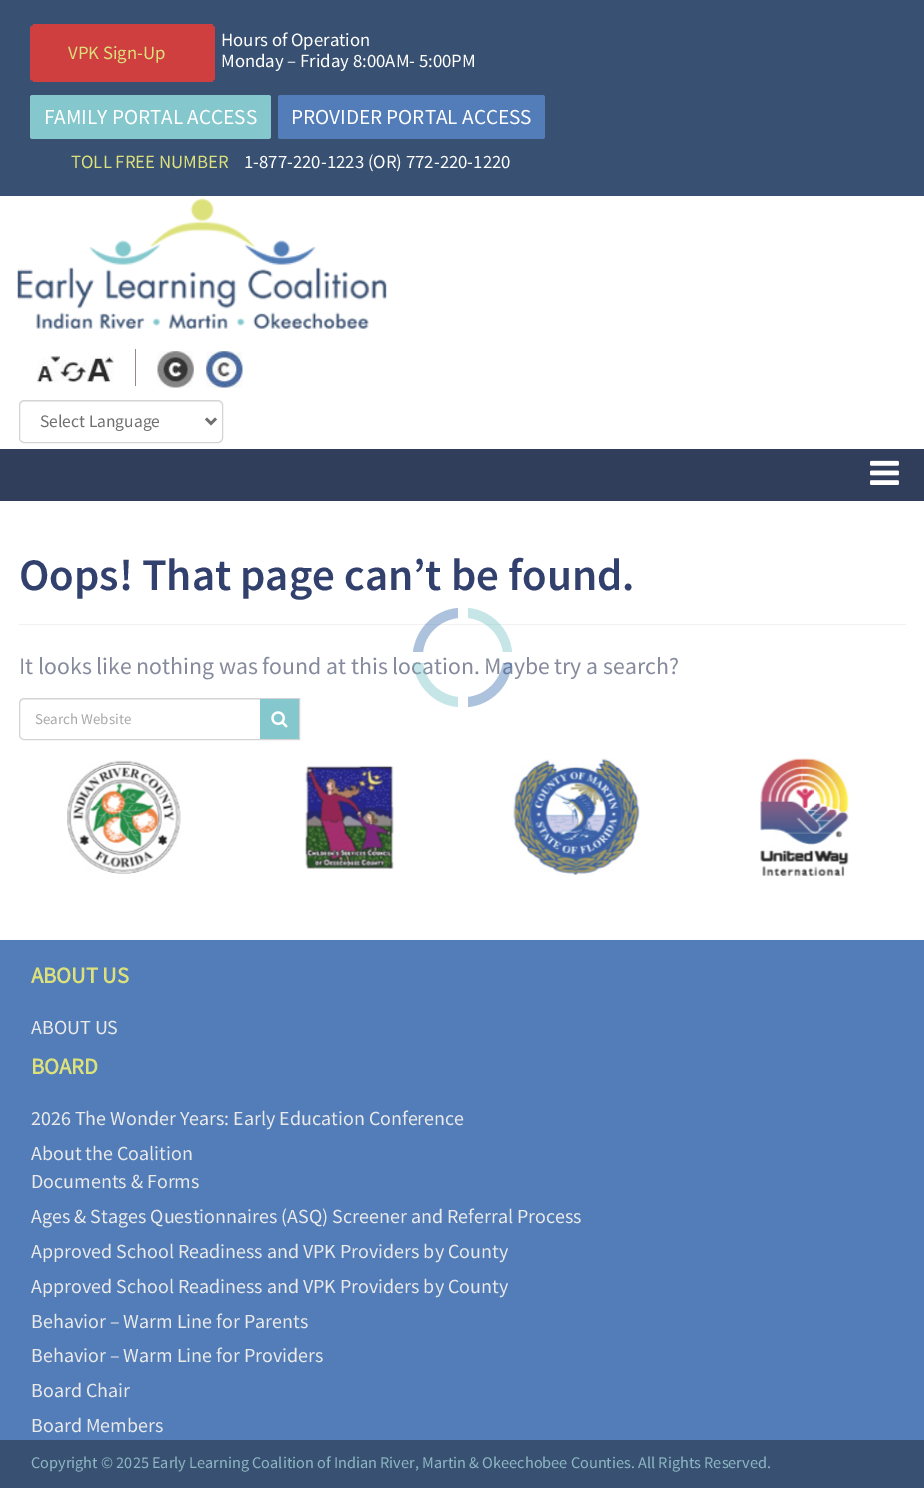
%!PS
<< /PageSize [924 1488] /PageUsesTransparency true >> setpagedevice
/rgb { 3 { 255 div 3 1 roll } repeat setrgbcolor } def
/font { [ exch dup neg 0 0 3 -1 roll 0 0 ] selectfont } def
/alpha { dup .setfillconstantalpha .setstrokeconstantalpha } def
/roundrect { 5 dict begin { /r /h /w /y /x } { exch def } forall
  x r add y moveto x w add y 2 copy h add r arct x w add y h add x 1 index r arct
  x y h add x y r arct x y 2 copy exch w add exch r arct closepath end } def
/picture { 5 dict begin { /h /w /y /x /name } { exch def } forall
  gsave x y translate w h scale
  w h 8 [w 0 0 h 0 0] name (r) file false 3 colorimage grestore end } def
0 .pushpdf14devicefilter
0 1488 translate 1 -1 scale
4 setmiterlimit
255 255 255 rgb
0 0 924 1488 rectfill
56 80 113 rgb
0 0 924 196 rectfill
207 63 63 rgb
35 25 moveto 210 25 lineto 213 25 215 27 215 28 curveto 215 78 lineto 215 80 213 81 210 81 curveto 35 81 lineto 32 81 30 80 30 78 curveto 30 28 lineto 30 27 32 25 35 25 curveto closepath fill
33 24 180 1 rectfill
33 81 180 1 rectfill
132 200 206 rgb
30 95 241 44 2.5 roundrect fill
82 125 184 rgb
278 95 267 44 2.5 roundrect fill
(img/1.rgb) 17 198 370 131 picture
(img/2.rgb) 37 356 23 27 picture
(img/3.rgb) 60 360 27 23 picture
(img/4.rgb) 87 356 27 27 picture
149 137 137 rgb
135 349 1 37 rectfill
(img/5.rgb) 157 351 37 37 picture
(img/6.rgb) 206 351 37 37 picture
239 239 239 rgb
24 402 moveto 218 402 lineto 220 402 221 404 221 406 curveto 221 405 lineto 221 403 219 401 217 401 curveto 24 401 lineto 22 401 20 403 20 405 curveto 20 406 lineto 20 404 22 402 24 402 curveto closepath fill
212 212 212 rgb
19.5 400.5 203 42 4.5 roundrect stroke
111 111 111 rgb
2.5 setlinewidth
206 418.5 moveto 211 423.5 lineto 216 418.5 lineto stroke
48 61 91 rgb
0 449 924 52 rectfill
(img/7.rgb) 870 460 29 25 picture
241 241 241 rgb
19 624 887 1 rectfill
239 239 239 rgb
24 700 moveto 299 700 lineto 299 699 lineto 24 699 lineto 21 699 20 701 20 704 curveto 20 702 22 700 24 700 curveto closepath fill
212 212 212 rgb
1 setlinewidth
24 698.5 moveto 299.5 698.5 lineto 299.5 739.5 lineto 24 739.5 lineto 21.5 739.5 19.5 737.5 19.5 735 curveto 19.5 703 lineto 19.5 700.5 21.5 698.5 24 698.5 curveto closepath stroke
260 698 moveto 295 698 lineto 298 698 300 700 300 702 curveto 300 735 lineto 300 738 298 740 295 740 curveto 260 740 lineto closepath 260 699 moveto 295 699 lineto 297 699 299 700 299 702 curveto 299 735 lineto 299 737 297 739 295 739 curveto 260 739 lineto closepath eofill
132 200 206 rgb
260 699 39 40 rectfill
(img/8.rgb) 271 711 17 17 picture
0.4 alpha
51 103 171 rgb
423 652 moveto 425 634 440 620 458 618 curveto 458 608 lineto 434 610 416 629 413 652 curveto closepath fill
109 190 196 rgb
468 618 moveto 486 620 500 634 503 652 curveto 512 652 lineto 510 629 491 610 468 608 curveto closepath fill
1 alpha
(img/9.rgb) 67 760 114 114 picture
(img/10.rgb) 305 765 89 104 picture
(img/11.rgb) 513 758 127 118 picture
(img/12.rgb) 760 758 89 118 picture
82 125 184 rgb
0 940 924 500 rectfill
56 80 113 rgb
0 1440 924 48 rectfill
/SourceSansPro-Regular 18.75 font
221 225 123 rgb
68 59 moveto (VPK Sign-Up) show
255 255 255 rgb
221 46 moveto (Hours of Operation) show
221 67 moveto (Monday – Friday 8:00AM- 5:00PM) show
/SourceSansPro-Regular 21.25 font
44 124 moveto (FAMILY PORTAL ACCESS) show
291 124 moveto (PROVIDER PORTAL ACCESS) show
/SourceSansPro-Regular 18.75 font
221 225 123 rgb
71 168 moveto (TOLL FREE NUMBER) show
255 255 255 rgb
244 168 moveto (1-877-220-1223 \(OR\) 772-220-1220) show
/SourceSansPro-Regular 17.5 font
111 111 111 rgb
40 427 moveto (Select Language) show
/SourceSansPro-SemiBold 45 font
50 64 109 rgb
19 590 moveto (Oops! That page can’t be found.) show
/SourceSansPro-Regular 23.75 font
133 138 156 rgb
19 674 moveto (It looks like nothing was found at this location. Maybe try a search?) show
/SourceSansPro-Regular 15 font
168 168 168 rgb
35 724 moveto (Search Website) show
0.4 alpha
51 103 171 rgb
503 663 moveto 500 681 486 695 468 697 curveto 468 707 lineto 491 705 510 686 512 663 curveto closepath fill
109 190 196 rgb
458 697 moveto 440 695 425 681 423 663 curveto 413 663 lineto 416 686 434 705 458 707 curveto closepath fill
/SourceSansPro-Bold 22.5 font
1 alpha
221 225 123 rgb
31 983 moveto (ABOUT US) show
/SourceSansPro-Regular 20 font
234 234 234 rgb
31 1034 moveto (ABOUT US) show
/SourceSansPro-Bold 22.5 font
221 225 123 rgb
31 1074 moveto (BOARD) show
/SourceSansPro-Regular 20 font
234 234 234 rgb
[
  [(2026 The Wonder Years: Early Education Conference) 31 1125]
  [(About the Coalition) 31 1160]
  [(Documents & Forms) 31 1188]
  [(Ages & Stages Questionnaires \(ASQ\) Screener and Referral Process) 31 1223]
  [(Approved School Readiness and VPK Providers by County) 31 1258]
  [(Approved School Readiness and VPK Providers by County) 31 1293]
  [(Behavior – Warm Line for Parents) 31 1328]
  [(Behavior – Warm Line for Providers) 31 1362]
  [(Board Chair) 31 1397]
  [(Board Members) 31 1432]
] { aload pop moveto show } forall
/SourceSansPro-Regular 16.25 font
140 182 195 rgb
31 1468 moveto (Copyright © 2025 Early Learning Coalition of Indian River, Martin & Okeechobee Counties. All Rights Reserved.) show
.poppdf14devicefilter showpage
